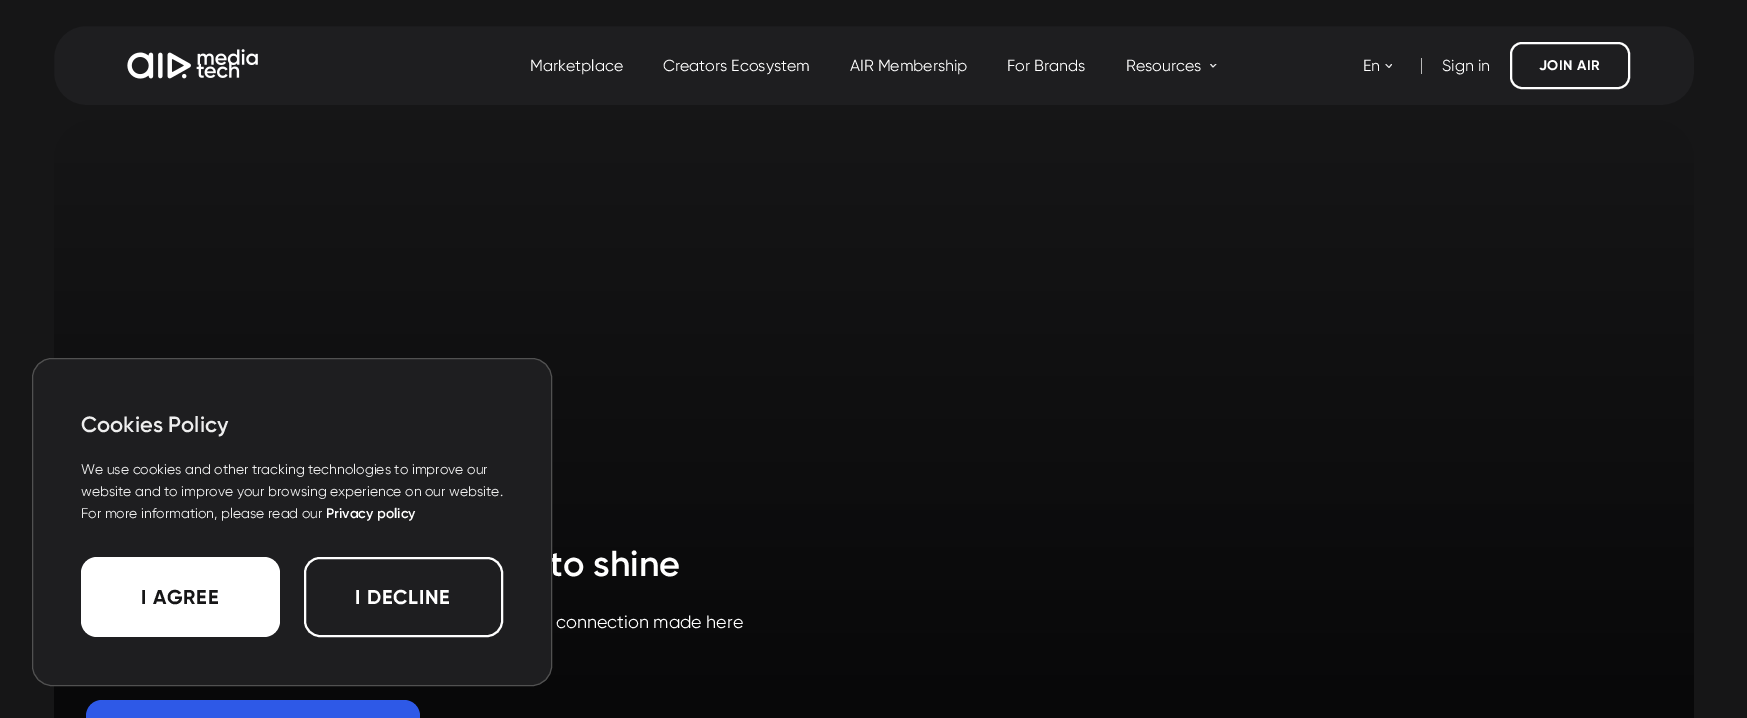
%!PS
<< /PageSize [1747 718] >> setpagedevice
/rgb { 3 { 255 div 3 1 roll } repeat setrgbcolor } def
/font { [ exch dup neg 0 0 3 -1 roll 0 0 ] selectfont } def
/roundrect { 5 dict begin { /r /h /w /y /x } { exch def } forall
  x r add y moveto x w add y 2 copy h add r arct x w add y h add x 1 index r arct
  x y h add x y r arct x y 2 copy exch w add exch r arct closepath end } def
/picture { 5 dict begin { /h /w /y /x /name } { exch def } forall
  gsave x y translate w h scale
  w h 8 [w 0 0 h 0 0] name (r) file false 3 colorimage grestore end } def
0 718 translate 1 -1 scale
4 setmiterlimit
22 22 23 rgb
0 0 1747 718 rectfill
30 30 32 rgb
49 21 1650 89 37 roundrect gsave fill grestore
22 22 23 rgb
10 setlinewidth
stroke
(img/1.rgb) 127 49 131 30 picture
gsave
1209 64 8 4 rectclip
232 232 233 rgb
1 setlinewidth
1 setlinecap
1 setlinejoin
1210.5 64 moveto 1213 67 lineto 1216 64 lineto stroke
grestore
232 232 233 rgb
1 setlinewidth
1 setlinecap
1 setlinejoin
1386 64.5 moveto 1389 67.5 lineto 1391.5 64.5 lineto stroke
186 186 186 rgb
1421 58 1 16 rectfill
255 255 255 rgb
2 setlinewidth
0 setlinecap
0 setlinejoin
1511 43 118 45 11 roundrect stroke
gsave 54 120 1640 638 40 roundrect clip newpath
<< /ShadingType 2 /ColorSpace /DeviceRGB /Coords [874 120 874 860] /Extend [true true] /Function << /FunctionType 2 /Domain [0 1] /C0 [0.086 0.086 0.09] /C1 [0.016 0.016 0.02] /N 1 >> >> shfill grestore
46 89 231 rgb
86 700 334 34 16 roundrect fill
/Gilroy-Regular 16 font
255 255 255 rgb
[
  [(Marketplace) 530 71]
  [(Creators Ecosystem) 663 71]
  [(AIR Membership) 850 71]
  [(For Brands) 1007 71]
  [(Resources) 1126 71]
  [(En) 1363 71]
  [(Sign in) 1442 71]
] { aload pop moveto show } forall
/Gilroy-Bold 14 font
1539 70 moveto 0.5 0 (JOIN AIR) ashow
/Gilroy-SemiBold 36 font
549 576 moveto (to shine) show
30 30 32 rgb
32.5 358.5 519 327 19.5 roundrect gsave fill grestore
81 81 81 rgb
1 setlinewidth
stroke
255 255 255 rgb
2 setlinewidth
305 558 197 78 15 roundrect stroke
/Gilroy-Bold 20 font
355 604 moveto 0.75 0 (I DECLINE) ashow
81 557 199 80 16 roundrect fill
22 22 23 rgb
141 604 moveto 0.75 0 (I AGREE) ashow
/Gilroy-SemiBold 14 font
255 255 255 rgb
326 518 moveto (Privacy policy) show
/Gilroy-Regular 14 font
238 238 238 rgb
[
  [(For more information, please read our) 81 518]
  [(website and to improve your browsing experience on our website.) 81 496]
  [(We use cookies and other tracking technologies to improve our) 81 474]
] { aload pop moveto show } forall
/Gilroy-SemiBold 22 font
81 432 moveto (Cookies Policy) show
/Gilroy-Regular 18 font
255 255 255 rgb
556 628 moveto (connection made here) show
showpage
